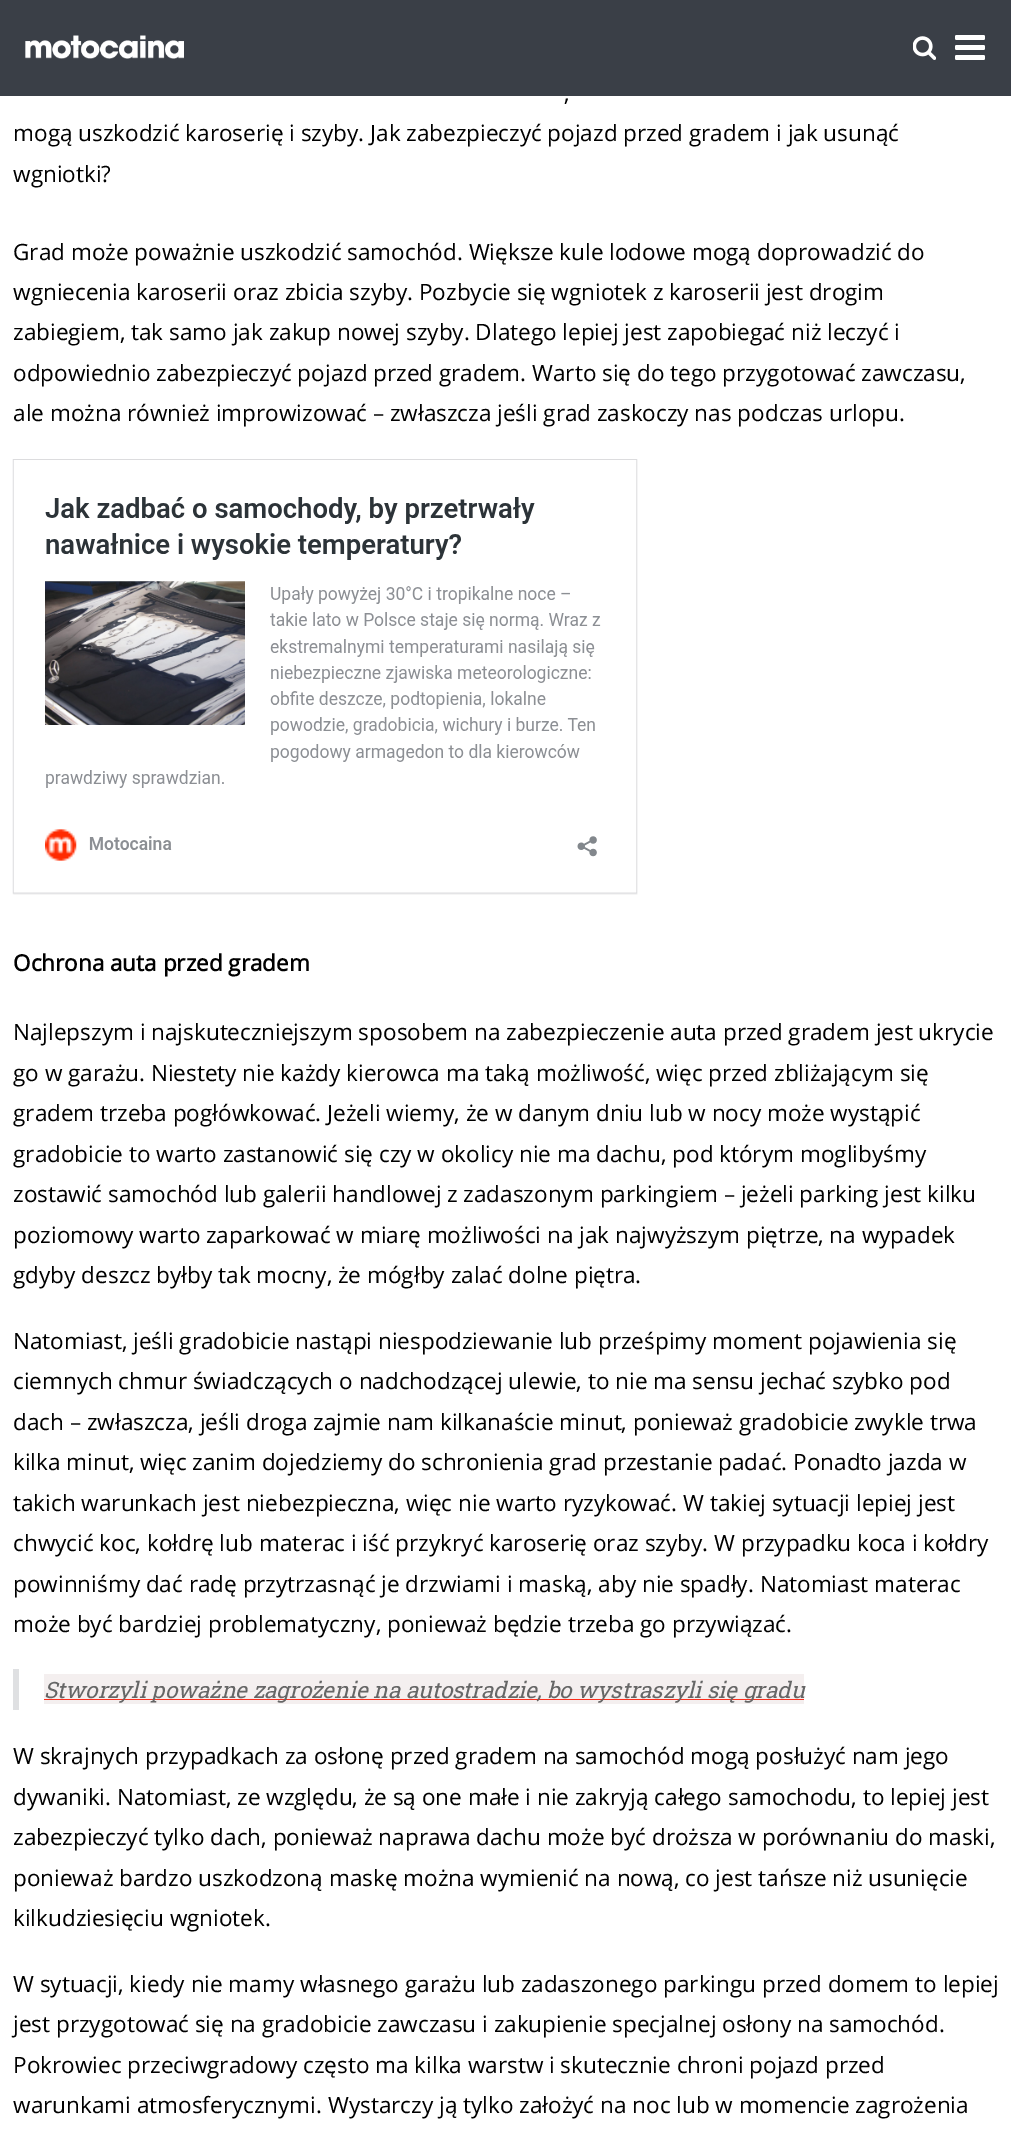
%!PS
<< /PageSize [1011 2133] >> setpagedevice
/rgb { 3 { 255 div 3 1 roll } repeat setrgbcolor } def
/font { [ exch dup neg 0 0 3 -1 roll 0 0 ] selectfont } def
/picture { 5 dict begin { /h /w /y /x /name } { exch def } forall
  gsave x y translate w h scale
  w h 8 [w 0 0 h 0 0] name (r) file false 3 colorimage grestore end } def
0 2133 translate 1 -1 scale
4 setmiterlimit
255 255 255 rgb
0 0 1011 2133 rectfill
58 63 71 rgb
0 0 1011 96 rectfill
(img/1.rgb) 25 35 159 24 picture
(img/2.rgb) 913 36 23 24 picture
(img/3.rgb) 955 35 30 25 picture
(img/4.rgb) 12 459 626 436 picture
[
  [13 1669 6 41 223 224 226]
  [44 1674 760 30 244 239 239]
  [44 1699 760 1 252 46 29]
] { aload pop rgb rectfill } forall
/OpenSans-Regular 22.5 font
0 0 0 rgb
[
  [(,) 564 101]
  [(mogą uszkodzić karoserię i szyby. Jak zabezpieczyć pojazd przed gradem i jak usunąć) 13 141]
  [(wgniotki?) 13 182]
  [(Grad może poważnie uszkodzić samochód. Większe kule lodowe mogą doprowadzić do) 13 260]
  [(wgniecenia karoserii oraz zbicia szyby. Pozbycie się wgniotek z karoserii jest drogim) 13 300]
  [(zabiegiem, tak samo jak zakup nowej szyby. Dlatego lepiej jest zapobiegać niż leczyć i) 13 340]
  [(odpowiednio zabezpieczyć pojazd przed gradem. Warto się do tego przygotować zawczasu,) 13 381]
  [(ale można również improwizować – zwłaszcza jeśli grad zaskoczy nas podczas urlopu.) 13 421]
] { aload pop moveto show } forall
/OpenSans-Bold 22.5 font
13 971 moveto (Ochrona auta przed gradem) show
/OpenSans-Regular 22.5 font
[
  [(Najlepszym i najskuteczniejszym sposobem na zabezpieczenie auta przed gradem jest ukrycie) 13 1040]
  [(go w garażu. Niestety nie każdy kierowca ma taką możliwość, więc przed zbliżającym się) 13 1081]
  [(gradem trzeba pogłówkować. Jeżeli wiemy, że w danym dniu lub w nocy może wystąpić) 13 1121]
  [(gradobicie to warto zastanowić się czy w okolicy nie ma dachu, pod którym moglibyśmy) 13 1162]
  [(zostawić samochód lub galerii handlowej z zadaszonym parkingiem – jeżeli parking jest kilku) 13 1202]
  [(poziomowy warto zaparkować w miarę możliwości na jak najwyższym piętrze, na wypadek) 13 1243]
  [(gdyby deszcz byłby tak mocny, że mógłby zalać dolne piętra.) 13 1283]
  [(Natomiast, jeśli gradobicie nastąpi niespodziewanie lub prześpimy moment pojawienia się) 13 1349]
  [(ciemnych chmur świadczących o nadchodzącej ulewie, to nie ma sensu jechać szybko pod) 13 1389]
  [(dach – zwłaszcza, jeśli droga zajmie nam kilkanaście minut, ponieważ gradobicie zwykle trwa) 13 1430]
  [(kilka minut, więc zanim dojedziemy do schronienia grad przestanie padać. Ponadto jazda w) 13 1470]
  [(takich warunkach jest niebezpieczna, więc nie warto ryzykować. W takiej sytuacji lepiej jest) 13 1511]
  [(chwycić koc, kołdrę lub materac i iść przykryć karoserię oraz szyby. W przypadku koca i kołdry) 13 1551]
  [(powinniśmy dać radę przytrzasnąć je drzwiami i maską, aby nie spadły. Natomiast materac) 13 1592]
  [(może być bardziej problematyczny, ponieważ będzie trzeba go przywiązać.) 13 1632]
] { aload pop moveto show } forall
/RobotoSlab-Italic 22.5 font
102 102 102 rgb
44 1698 moveto (Stworzyli poważne zagrożenie na autostradzie, bo wystraszyli się gradu) show
/OpenSans-Regular 22.5 font
0 0 0 rgb
[
  [(W skrajnych przypadkach za osłonę przed gradem na samochód mogą posłużyć nam jego) 13 1764]
  [(dywaniki. Natomiast, ze względu, że są one małe i nie zakryją całego samochodu, to lepiej jest) 13 1805]
  [(zabezpieczyć tylko dach, ponieważ naprawa dachu może być droższa w porównaniu do maski,) 13 1845]
  [(ponieważ bardzo uszkodzoną maskę można wymienić na nową, co jest tańsze niż usunięcie) 13 1886]
  [(kilkudziesięciu wgniotek.) 13 1926]
  [(W sytuacji, kiedy nie mamy własnego garażu lub zadaszonego parkingu przed domem to lepiej) 13 1992]
  [(jest przygotować się na gradobicie zawczasu i zakupienie specjalnej osłony na samochód.) 13 2032]
  [(Pokrowiec przeciwgradowy często ma kilka warstw i skutecznie chroni pojazd przed) 13 2073]
  [(warunkami atmosferycznymi. Wystarczy ją tylko założyć na noc lub w momencie zagrożenia) 13 2113]
] { aload pop moveto show } forall
showpage
